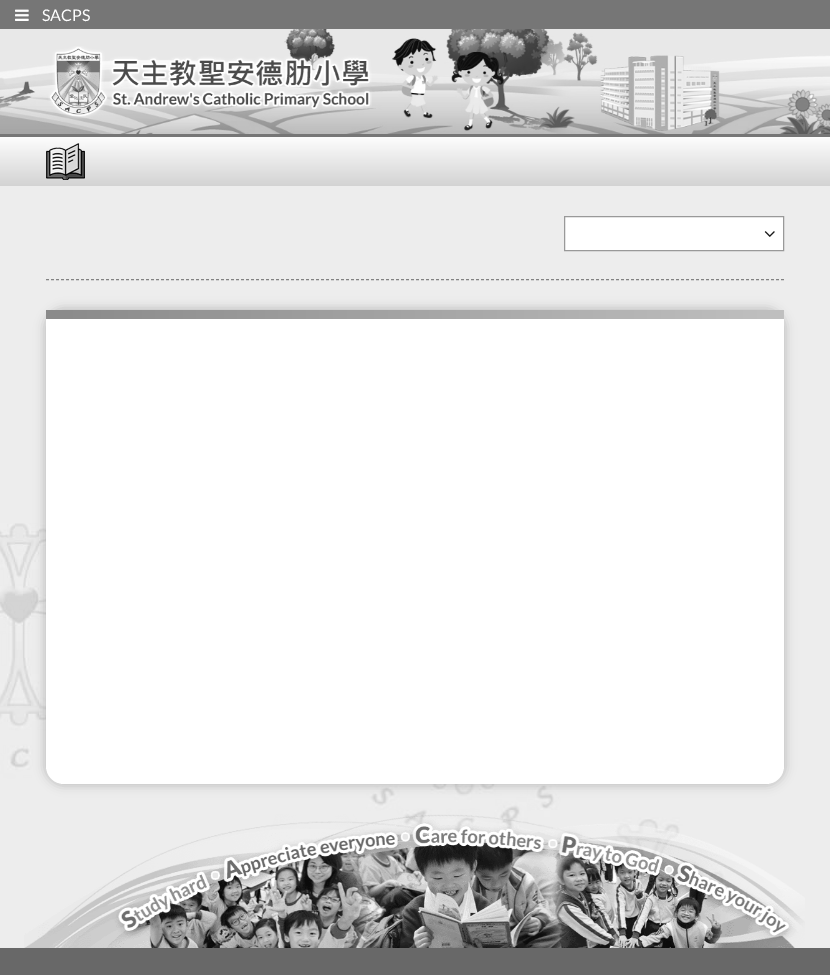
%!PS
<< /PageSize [830 975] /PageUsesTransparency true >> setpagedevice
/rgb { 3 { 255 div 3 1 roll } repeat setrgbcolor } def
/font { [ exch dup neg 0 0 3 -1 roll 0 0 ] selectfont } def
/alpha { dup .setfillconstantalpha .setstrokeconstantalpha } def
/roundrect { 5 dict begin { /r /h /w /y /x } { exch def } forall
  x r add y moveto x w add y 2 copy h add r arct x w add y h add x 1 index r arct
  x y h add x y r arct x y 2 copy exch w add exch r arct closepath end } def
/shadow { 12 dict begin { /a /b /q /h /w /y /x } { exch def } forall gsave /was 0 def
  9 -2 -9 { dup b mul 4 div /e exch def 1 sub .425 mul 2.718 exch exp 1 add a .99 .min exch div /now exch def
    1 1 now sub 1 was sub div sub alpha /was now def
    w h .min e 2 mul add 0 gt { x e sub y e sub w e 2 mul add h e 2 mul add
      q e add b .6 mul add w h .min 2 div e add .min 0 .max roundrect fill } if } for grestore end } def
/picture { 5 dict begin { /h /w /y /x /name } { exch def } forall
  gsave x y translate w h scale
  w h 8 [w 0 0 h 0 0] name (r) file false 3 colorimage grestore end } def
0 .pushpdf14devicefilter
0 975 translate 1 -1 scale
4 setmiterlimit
118 118 118 rgb
0 0 830 975 rectfill
(img/1.rgb) 15 9 14 12 picture
(img/2.rgb) 0 29 830 105 picture
(img/3.rgb) 48 46 324 73 picture
gsave 0 137 moveto 830 137 lineto 830 186 lineto 0 186 lineto closepath clip newpath
<< /ShadingType 2 /ColorSpace /DeviceRGB /Coords [415 137 415 186] /Extend [true true] /Function << /FunctionType 2 /Domain [0 1] /C0 [0.992 0.992 0.992] /C1 [0.827 0.827 0.827] /N 1 >> >> shfill grestore
(img/4.rgb) 46 143 39 37 picture
237 237 237 rgb
0 186 830 762 rectfill
(img/5.rgb) 0 523 729 425 picture
255 255 255 rgb
565 217 218 33 rectfill
(img/6.rgb) 764 231 11 6 picture
153 153 153 rgb
564.5 216.5 219 34 rectstroke
130 130 130 rgb
[3 2] 0 setdash
46 279.5 moveto 784 279.5 lineto stroke
88 88 88 rgb
44 308 742 478 20 5 0.3 shadow
255 255 255 rgb
46 310 moveto 784 310 lineto 784 766 lineto 784 776 776 784 766 784 curveto 64 784 lineto 54 784 46 776 46 766 curveto closepath fill
gsave 46 310 moveto 784 310 lineto 784 319 lineto 46 319 lineto closepath clip newpath
<< /ShadingType 2 /ColorSpace /DeviceRGB /Coords [46 315 784 315] /Extend [true true] /Function << /FunctionType 2 /Domain [0 1] /C0 [0.541 0.541 0.541] /C1 [0.753 0.753 0.753] /N 1 >> >> shfill grestore
(img/7.rgb) 24 814 781 134 picture
104 104 104 rgb
0 948 830 27 rectfill
/Lato-Regular 16 font
255 255 255 rgb
42 21 moveto (SACPS) show
.poppdf14devicefilter showpage
